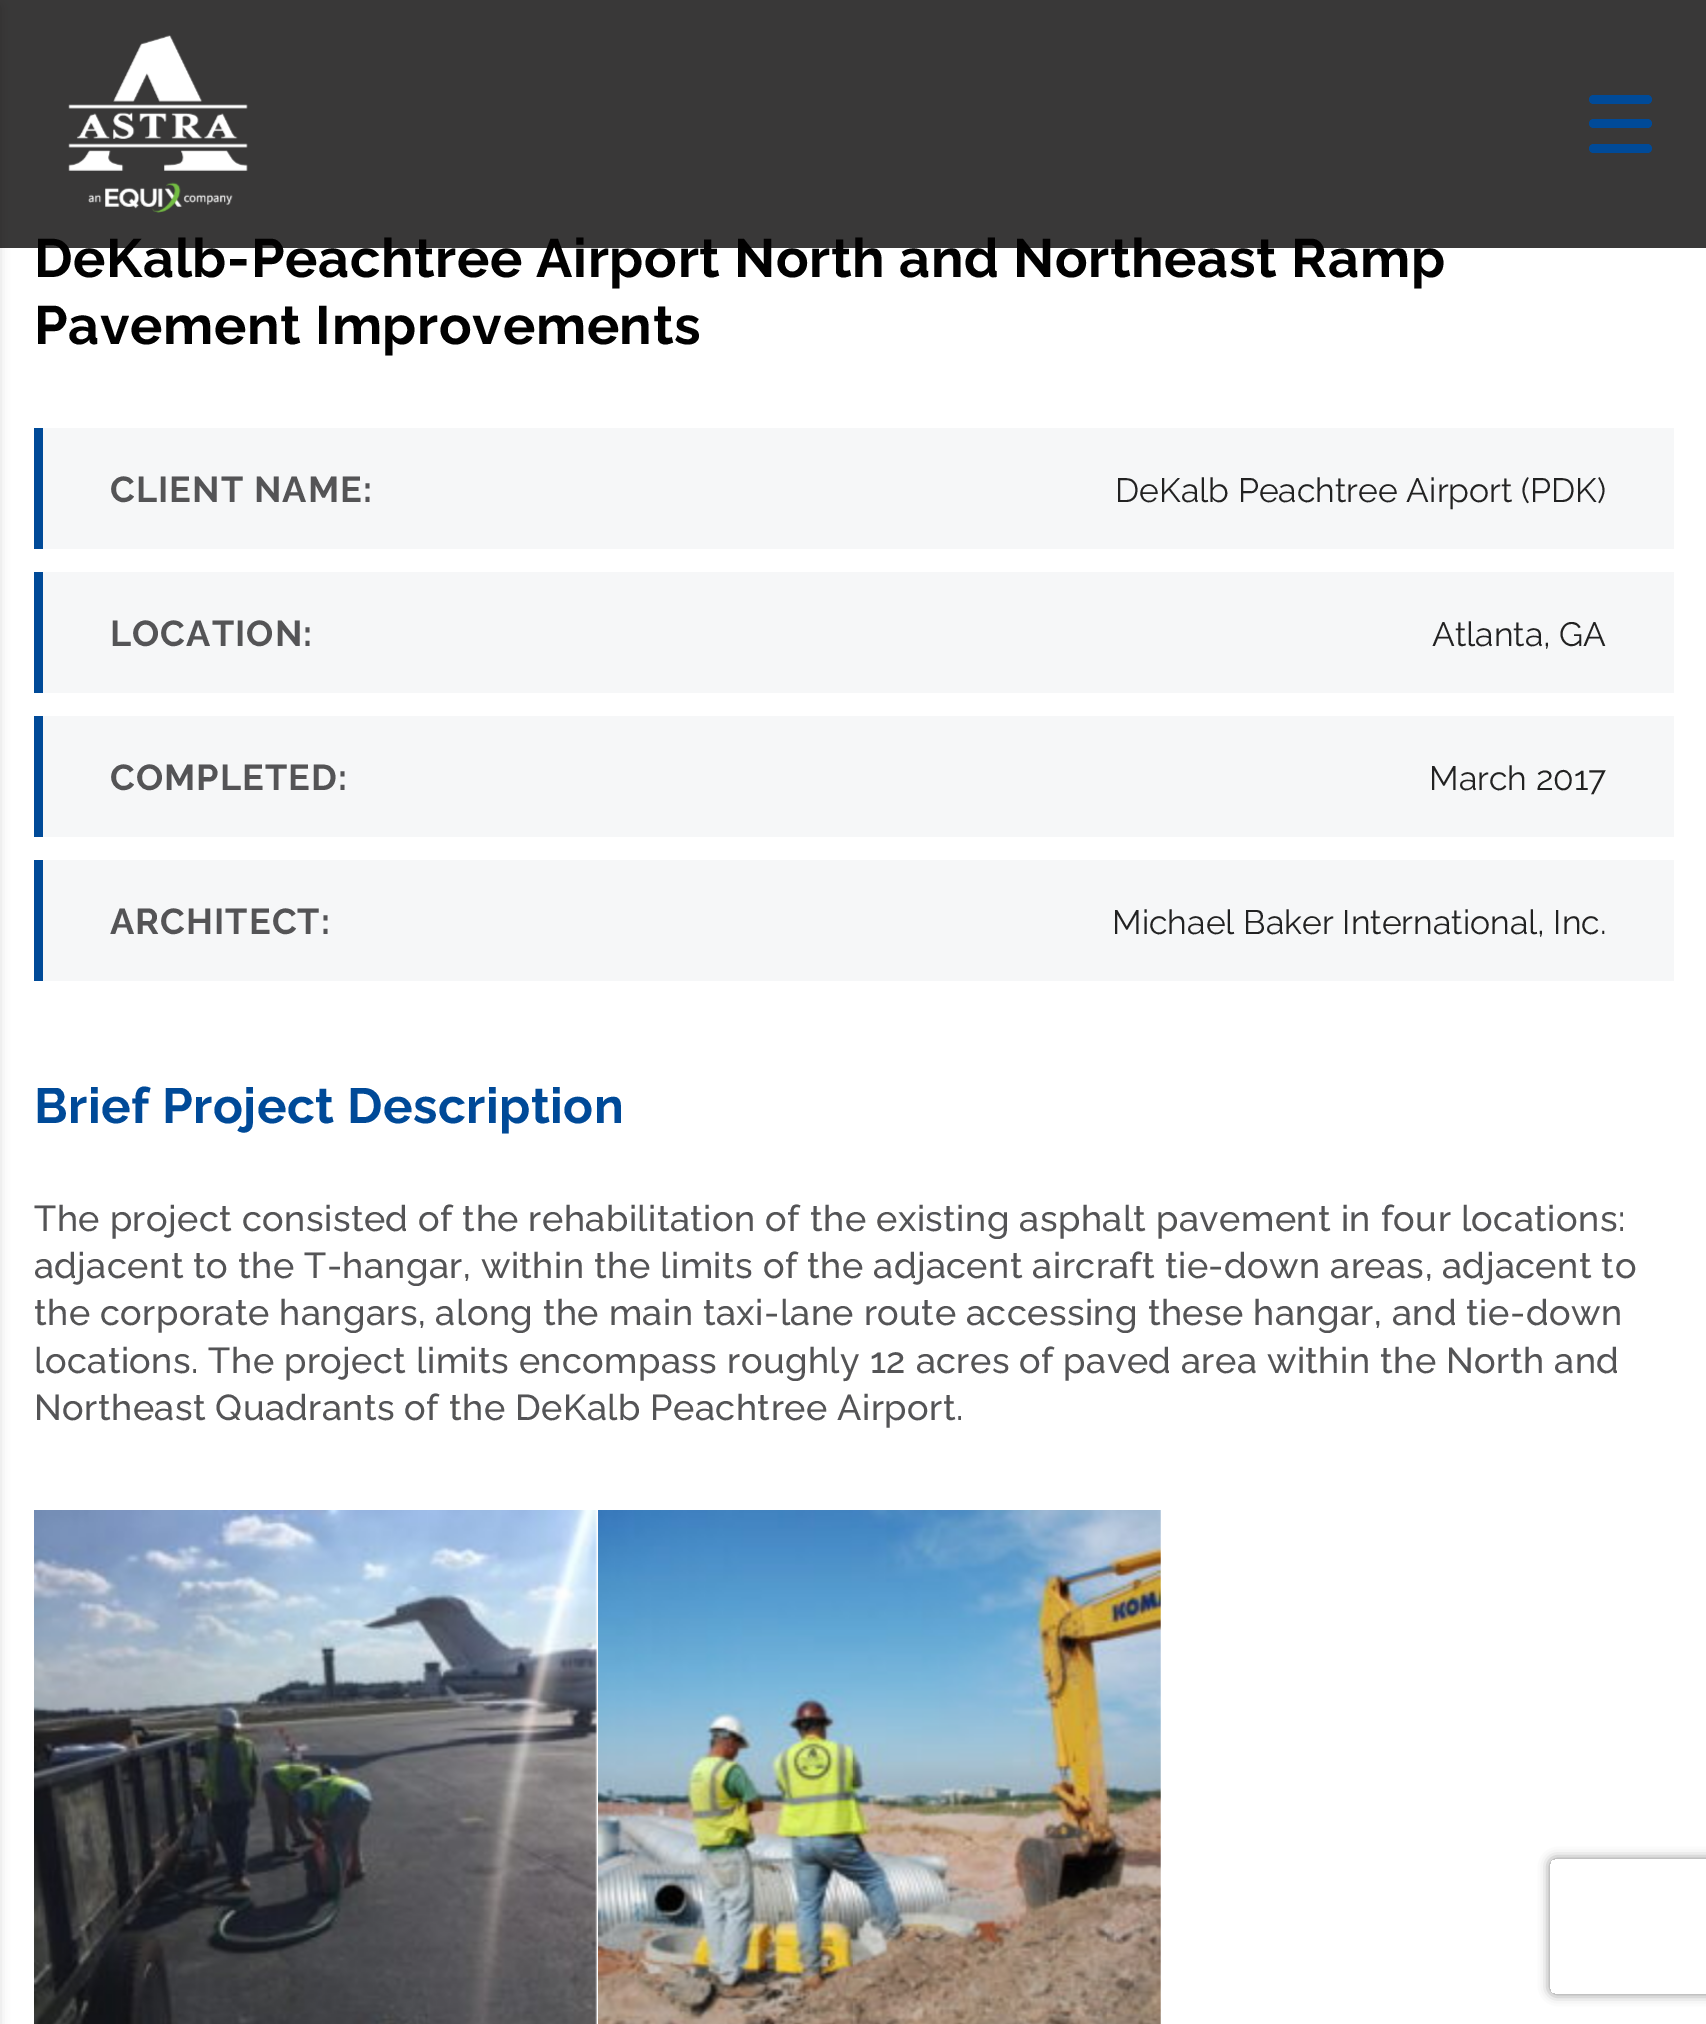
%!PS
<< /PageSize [1706 2024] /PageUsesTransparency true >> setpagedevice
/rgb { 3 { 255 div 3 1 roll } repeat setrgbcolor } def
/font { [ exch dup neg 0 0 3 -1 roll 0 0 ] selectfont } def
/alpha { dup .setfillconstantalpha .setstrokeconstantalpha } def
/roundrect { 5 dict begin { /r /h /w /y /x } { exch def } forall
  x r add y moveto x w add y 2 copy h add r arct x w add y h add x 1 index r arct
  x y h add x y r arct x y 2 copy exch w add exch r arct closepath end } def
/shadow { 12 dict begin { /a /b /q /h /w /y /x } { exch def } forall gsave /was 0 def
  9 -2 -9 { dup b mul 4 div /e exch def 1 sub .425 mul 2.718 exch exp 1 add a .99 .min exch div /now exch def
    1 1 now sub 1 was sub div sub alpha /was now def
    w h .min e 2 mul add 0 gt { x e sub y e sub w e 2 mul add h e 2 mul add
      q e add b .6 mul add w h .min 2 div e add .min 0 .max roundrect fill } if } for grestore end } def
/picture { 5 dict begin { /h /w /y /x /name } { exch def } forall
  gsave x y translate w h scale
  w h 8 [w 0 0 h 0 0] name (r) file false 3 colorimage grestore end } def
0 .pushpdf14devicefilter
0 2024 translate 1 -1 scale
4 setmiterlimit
255 255 255 rgb
0 0 1706 2024 rectfill
0 0 0 rgb
-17 7 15 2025 0 5.5 0.2 shadow
[
  [43 428 1631 121 246 247 248]
  [34 428 9 121 0 74 152]
  [43 572 1631 121 246 247 248]
  [34 572 9 121 0 74 152]
  [43 716 1631 121 246 247 248]
  [34 716 9 121 0 74 152]
  [43 860 1631 121 246 247 248]
  [34 860 9 121 0 74 152]
] { aload pop rgb rectfill } forall
(img/2.rgb) 34 1510 563 514 picture
(img/3.rgb) 598 1510 563 514 picture
gsave
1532 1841 moveto 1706 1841 lineto 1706 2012 lineto 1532 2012 lineto closepath 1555 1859 moveto 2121 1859 lineto 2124 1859 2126 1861 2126 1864 curveto 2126 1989 lineto 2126 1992 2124 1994 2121 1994 curveto 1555 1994 lineto 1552 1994 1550 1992 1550 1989 curveto 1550 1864 lineto 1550 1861 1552 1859 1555 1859 curveto closepath eoclip newpath
128 128 128 rgb
1550 1859 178 135 5 5.5 1 shadow
grestore
/Raleway-Bold 54 font
1 1 1 rgb
34 277 moveto 0.65 0 (DeKalb-Peachtree Airport North and Northeast Ramp) ashow
0.78 alpha
1 0 0 rgb
0 0 1706 248 rectfill
1 alpha
0 74 152 rgb
1589 144 63 9 4.5 roundrect fill
1589 95 63 9 4.5 roundrect fill
1589 119 63 9 4.5 roundrect fill
(img/1.rgb) 68 35 180 178 picture
1 1 1 rgb
34 344 moveto 0.65 0 (Pavement Improvements) ashow
/Raleway-Bold 36 font
84 84 86 rgb
110 502 moveto 1.1 0 (CLIENT NAME:) ashow
/Raleway-Regular 33.75 font
34 34 34 rgb
1115 502 moveto (DeKalb Peachtree Airport \(PDK\)) show
/Raleway-Bold 36 font
84 84 86 rgb
110 646 moveto 1.1 0 (LOCATION:) ashow
/Raleway-Regular 33.75 font
34 34 34 rgb
1432 646 moveto (Atlanta, GA) show
/Raleway-Bold 36 font
84 84 86 rgb
110 790 moveto 1.1 0 (COMPLETED:) ashow
/Raleway-Regular 33.75 font
34 34 34 rgb
1429 790 moveto (March 2017) show
/Raleway-Bold 36 font
84 84 86 rgb
110 934 moveto 1.1 0 (ARCHITECT:) ashow
/Raleway-Regular 33.75 font
34 34 34 rgb
1112 934 moveto (Michael Baker International, Inc.) show
/Raleway-Bold 49.5 font
0 74 152 rgb
34 1123 moveto 0.45 0 (Brief Project Description) ashow
/Raleway-Medium 36 font
84 84 86 rgb
34 1231 moveto 0.45 0 (The project consisted of the rehabilitation of the existing asphalt pavement in four locations:) ashow
34 1278 moveto 0.45 0 (adjacent to the T-hangar, within the limits of the adjacent aircraft tie-down areas, adjacent to) ashow
34 1325 moveto 0.45 0 (the corporate hangars, along the main taxi-lane route accessing these hangar, and tie-down) ashow
34 1373 moveto 0.45 0 (locations. The project limits encompass roughly 12 acres of paved area within the North and) ashow
34 1420 moveto 0.45 0 (Northeast Quadrants of the DeKalb Peachtree Airport.) ashow
.poppdf14devicefilter showpage
